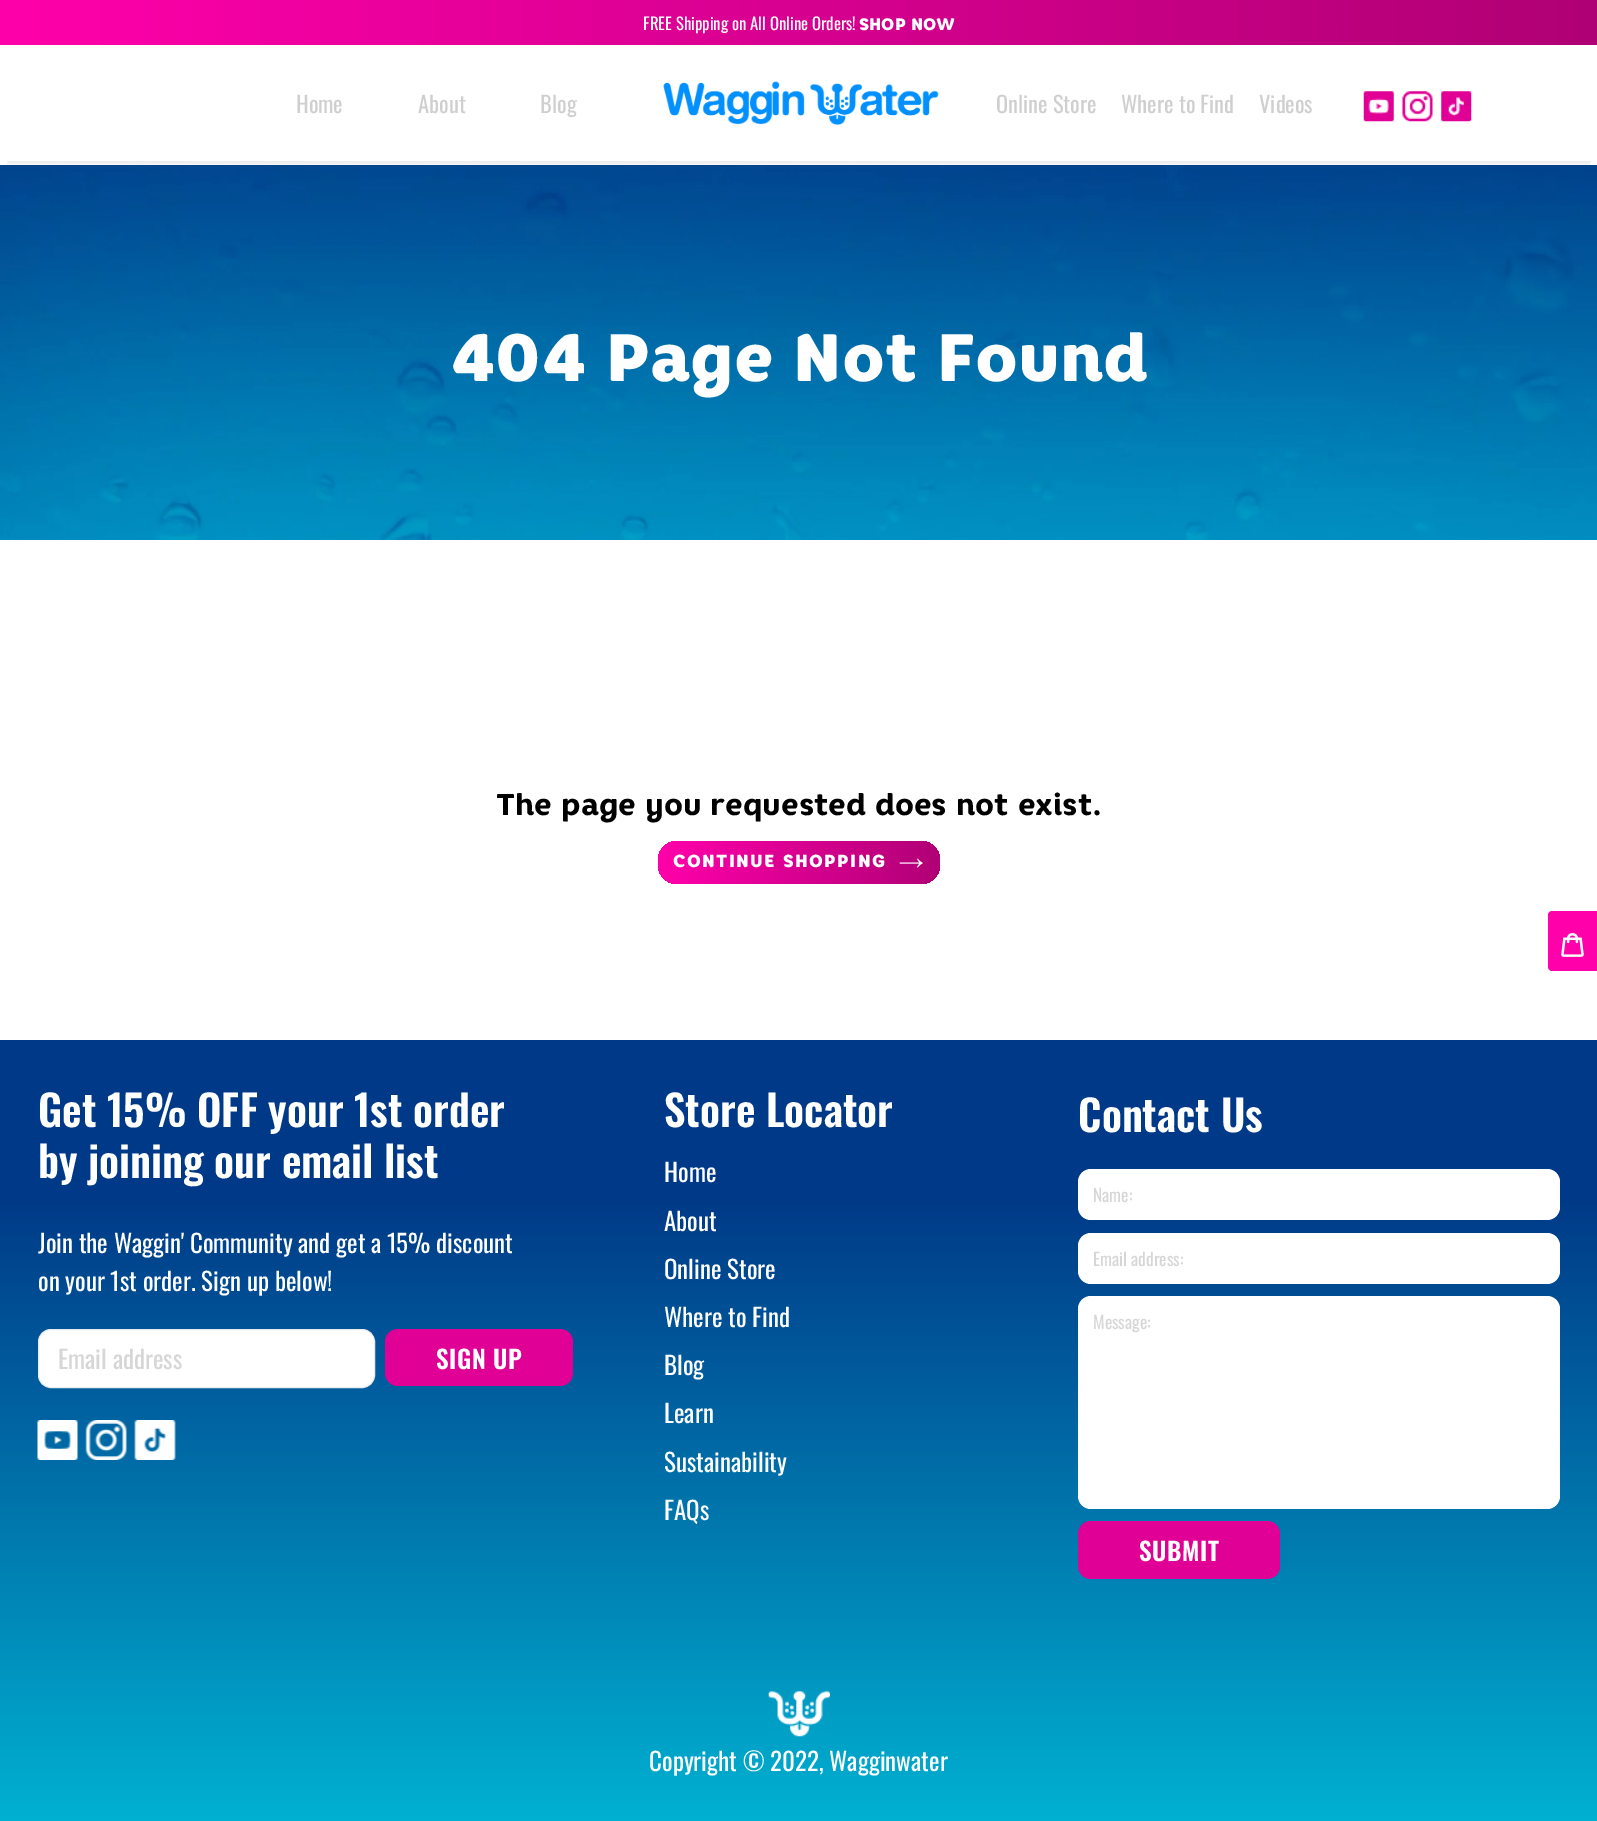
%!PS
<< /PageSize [1597 1821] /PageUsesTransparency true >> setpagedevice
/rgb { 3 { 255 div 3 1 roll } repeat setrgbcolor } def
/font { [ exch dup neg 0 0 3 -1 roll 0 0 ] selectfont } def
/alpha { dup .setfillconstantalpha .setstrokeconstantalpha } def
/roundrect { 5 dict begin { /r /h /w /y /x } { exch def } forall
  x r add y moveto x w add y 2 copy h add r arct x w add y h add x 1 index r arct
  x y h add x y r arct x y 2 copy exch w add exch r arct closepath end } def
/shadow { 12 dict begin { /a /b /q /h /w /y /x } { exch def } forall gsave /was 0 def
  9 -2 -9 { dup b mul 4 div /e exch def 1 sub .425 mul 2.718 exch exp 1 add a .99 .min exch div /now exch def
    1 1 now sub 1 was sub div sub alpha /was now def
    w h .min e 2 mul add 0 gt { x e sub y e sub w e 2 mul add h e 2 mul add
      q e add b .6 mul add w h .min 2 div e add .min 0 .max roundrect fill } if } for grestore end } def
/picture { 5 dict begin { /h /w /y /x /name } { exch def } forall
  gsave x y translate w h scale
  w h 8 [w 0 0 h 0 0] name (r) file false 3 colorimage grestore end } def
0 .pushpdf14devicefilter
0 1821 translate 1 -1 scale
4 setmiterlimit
255 255 255 rgb
0 0 1597 1821 rectfill
(img/6.rgb) 0 165 1597 375 picture
gsave
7 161 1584 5 rectclip
0 0 0 rgb
9 60 1580 100 0 5 0.2 shadow
grestore
gsave 0 0 moveto 1597 0 lineto 1597 45 lineto 0 45 lineto closepath clip newpath
<< /ShadingType 2 /ColorSpace /DeviceRGB /Coords [0 23 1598 22] /Extend [true true] /Function << /FunctionType 2 /Domain [0 1] /C0 [1 0 0.667] /C1 [0.69 0 0.459] /N 1 >> >> shfill grestore
(img/1.rgb) 663 81 276 44 picture
(img/2.rgb) 1363 91 31 31 picture
(img/3.rgb) 1402 91 31 31 picture
(img/4.rgb) 1441 91 31 31 picture
255 0 170 rgb
1552 911 moveto 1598 911 lineto 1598 971 lineto 1552 971 lineto 1550 971 1548 969 1548 967 curveto 1548 915 lineto 1548 913 1550 911 1552 911 curveto closepath fill
(img/5.rgb) 1561 933 23 24 picture
58 58 58 rgb
658 841 282 43 19 roundrect fill
gsave
658 841 282 43 19 roundrect clip newpath
gsave 658 854 moveto 659 854 lineto 659 871 lineto 658 871 lineto closepath clip newpath
<< /ShadingType 2 /ColorSpace /DeviceRGB /Coords [99 863 659 863] /Extend [true true] /Function << /FunctionType 3 /Domain [0 1] /Functions [<< /FunctionType 2 /Domain [0 1] /C0 [1 0 0.667] /C1 [0.69 0 0.459] /N 1 >> << /FunctionType 2 /Domain [0 1] /C0 [0.69 0 0.459] /C1 [1 0 0.667] /N 1 >>] /Bounds [0.51] /Encode [0 1 0 1] >> >> shfill grestore
gsave 659 841 moveto 921 841 lineto 931.5 841 940 849.5 940 860 curveto 940 865 lineto 940 875.5 931.5 884 921 884 curveto 659 884 lineto closepath clip newpath
<< /ShadingType 2 /ColorSpace /DeviceRGB /Coords [659 863 1219 863] /Extend [true true] /Function << /FunctionType 3 /Domain [0 1] /Functions [<< /FunctionType 2 /Domain [0 1] /C0 [1 0 0.667] /C1 [0.69 0 0.459] /N 1 >> << /FunctionType 2 /Domain [0 1] /C0 [0.69 0 0.459] /C1 [1 0 0.667] /N 1 >>] /Bounds [0.51] /Encode [0 1 0 1] >> >> shfill grestore
grestore
(img/7.rgb) 899 858 24 10 picture
gsave 0 1040 moveto 1597 1040 lineto 1597 1821 lineto 0 1821 lineto closepath clip newpath
<< /ShadingType 2 /ColorSpace /DeviceRGB /Coords [799 1040 799 1821] /Extend [true true] /Function << /FunctionType 3 /Domain [0 1] /Functions [<< /FunctionType 2 /Domain [0 1] /C0 [0 0.224 0.529] /C1 [0 0.224 0.529] /N 1 >> << /FunctionType 2 /Domain [0 1] /C0 [0 0.224 0.529] /C1 [0 0.694 0.82] /N 1 >>] /Bounds [0.2] /Encode [0 1 0 1] >> >> shfill grestore
255 255 255 rgb
38.5 1329.5 336 58 12.5 roundrect gsave fill grestore
234 234 234 rgb
stroke
224 0 149 rgb
385 1329 188 57 13 roundrect fill
(img/8.rgb) 37 1420 41 40 picture
(img/9.rgb) 85 1420 42 40 picture
(img/10.rgb) 134 1420 42 40 picture
255 255 255 rgb
1078 1169 482 51 13 roundrect fill
1078 1233 482 51 13 roundrect fill
1078 1296 482 213 13 roundrect fill
224 0 149 rgb
1078 1521 202 58 13 roundrect fill
(img/11.rgb) 768 1691 62 46 picture
/Oswald-Regular 16.7 font
255 255 255 rgb
643 30 moveto (FREE Shipping on All Online Orders!) show
/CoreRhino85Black-Black 16.7 font
859 30 moveto (SHOP NOW) show
/Oswald-Regular 22.5 font
207 207 207 rgb
[
  [(Home) 296 113]
  [(About) 418 113]
  [(Blog) 540 113]
  [(Online Store) 996 113]
  [(Where to Find) 1121 113]
  [(Videos) 1259 113]
] { aload pop moveto show } forall
/CoreRhino85Black-Black 66.75 font
255 255 255 rgb
450 381 moveto (404 Page Not Found) show
/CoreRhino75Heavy-Black 30 font
0 0 0 rgb
496 815 moveto (The page you requested does not exist.) show
/CoreRhino85Black-Black 17.5 font
255 255 255 rgb
673 867 moveto 1.4 0 (CONTINUE SHOPPING) ashow
/Oswald-SemiBold 42.5 font
38 1127 moveto (Get 15% OFF your 1st order) show
38 1178 moveto (by joining our email list) show
/Oswald-Regular 25 font
38 1253 moveto (Join the Waggin' Community and get a 15% discount) show
38 1291 moveto (on your 1st order. Sign up below!) show
214 214 214 rgb
58 1369 moveto (Email address) show
/Oswald-SemiBold 25 font
255 255 255 rgb
436 1369 moveto 0.5 0 (SIGN UP) ashow
/Oswald-SemiBold 42.5 font
664 1127 moveto (Store Locator) show
/Oswald-Regular 25 font
[
  [(Home) 664 1182]
  [(About) 664 1231]
  [(Online Store) 664 1279]
  [(Where to Find) 664 1327]
  [(Blog) 664 1375]
  [(Learn) 664 1423]
  [(Sustainability) 664 1472]
  [(FAQs) 664 1520]
] { aload pop moveto show } forall
/Oswald-SemiBold 42.5 font
1078 1132 moveto (Contact Us) show
/Oswald-Regular 17.5 font
214 214 214 rgb
[
  [(Name:) 1093 1202]
  [(Email address:) 1093 1266]
  [(Message:) 1093 1329]
] { aload pop moveto show } forall
/Oswald-SemiBold 25 font
255 255 255 rgb
1139 1561 moveto 0.5 0 (SUBMIT) ashow
/Oswald-Regular 25 font
649 1771 moveto (Copyright © 2022, Wagginwater) show
.poppdf14devicefilter showpage
